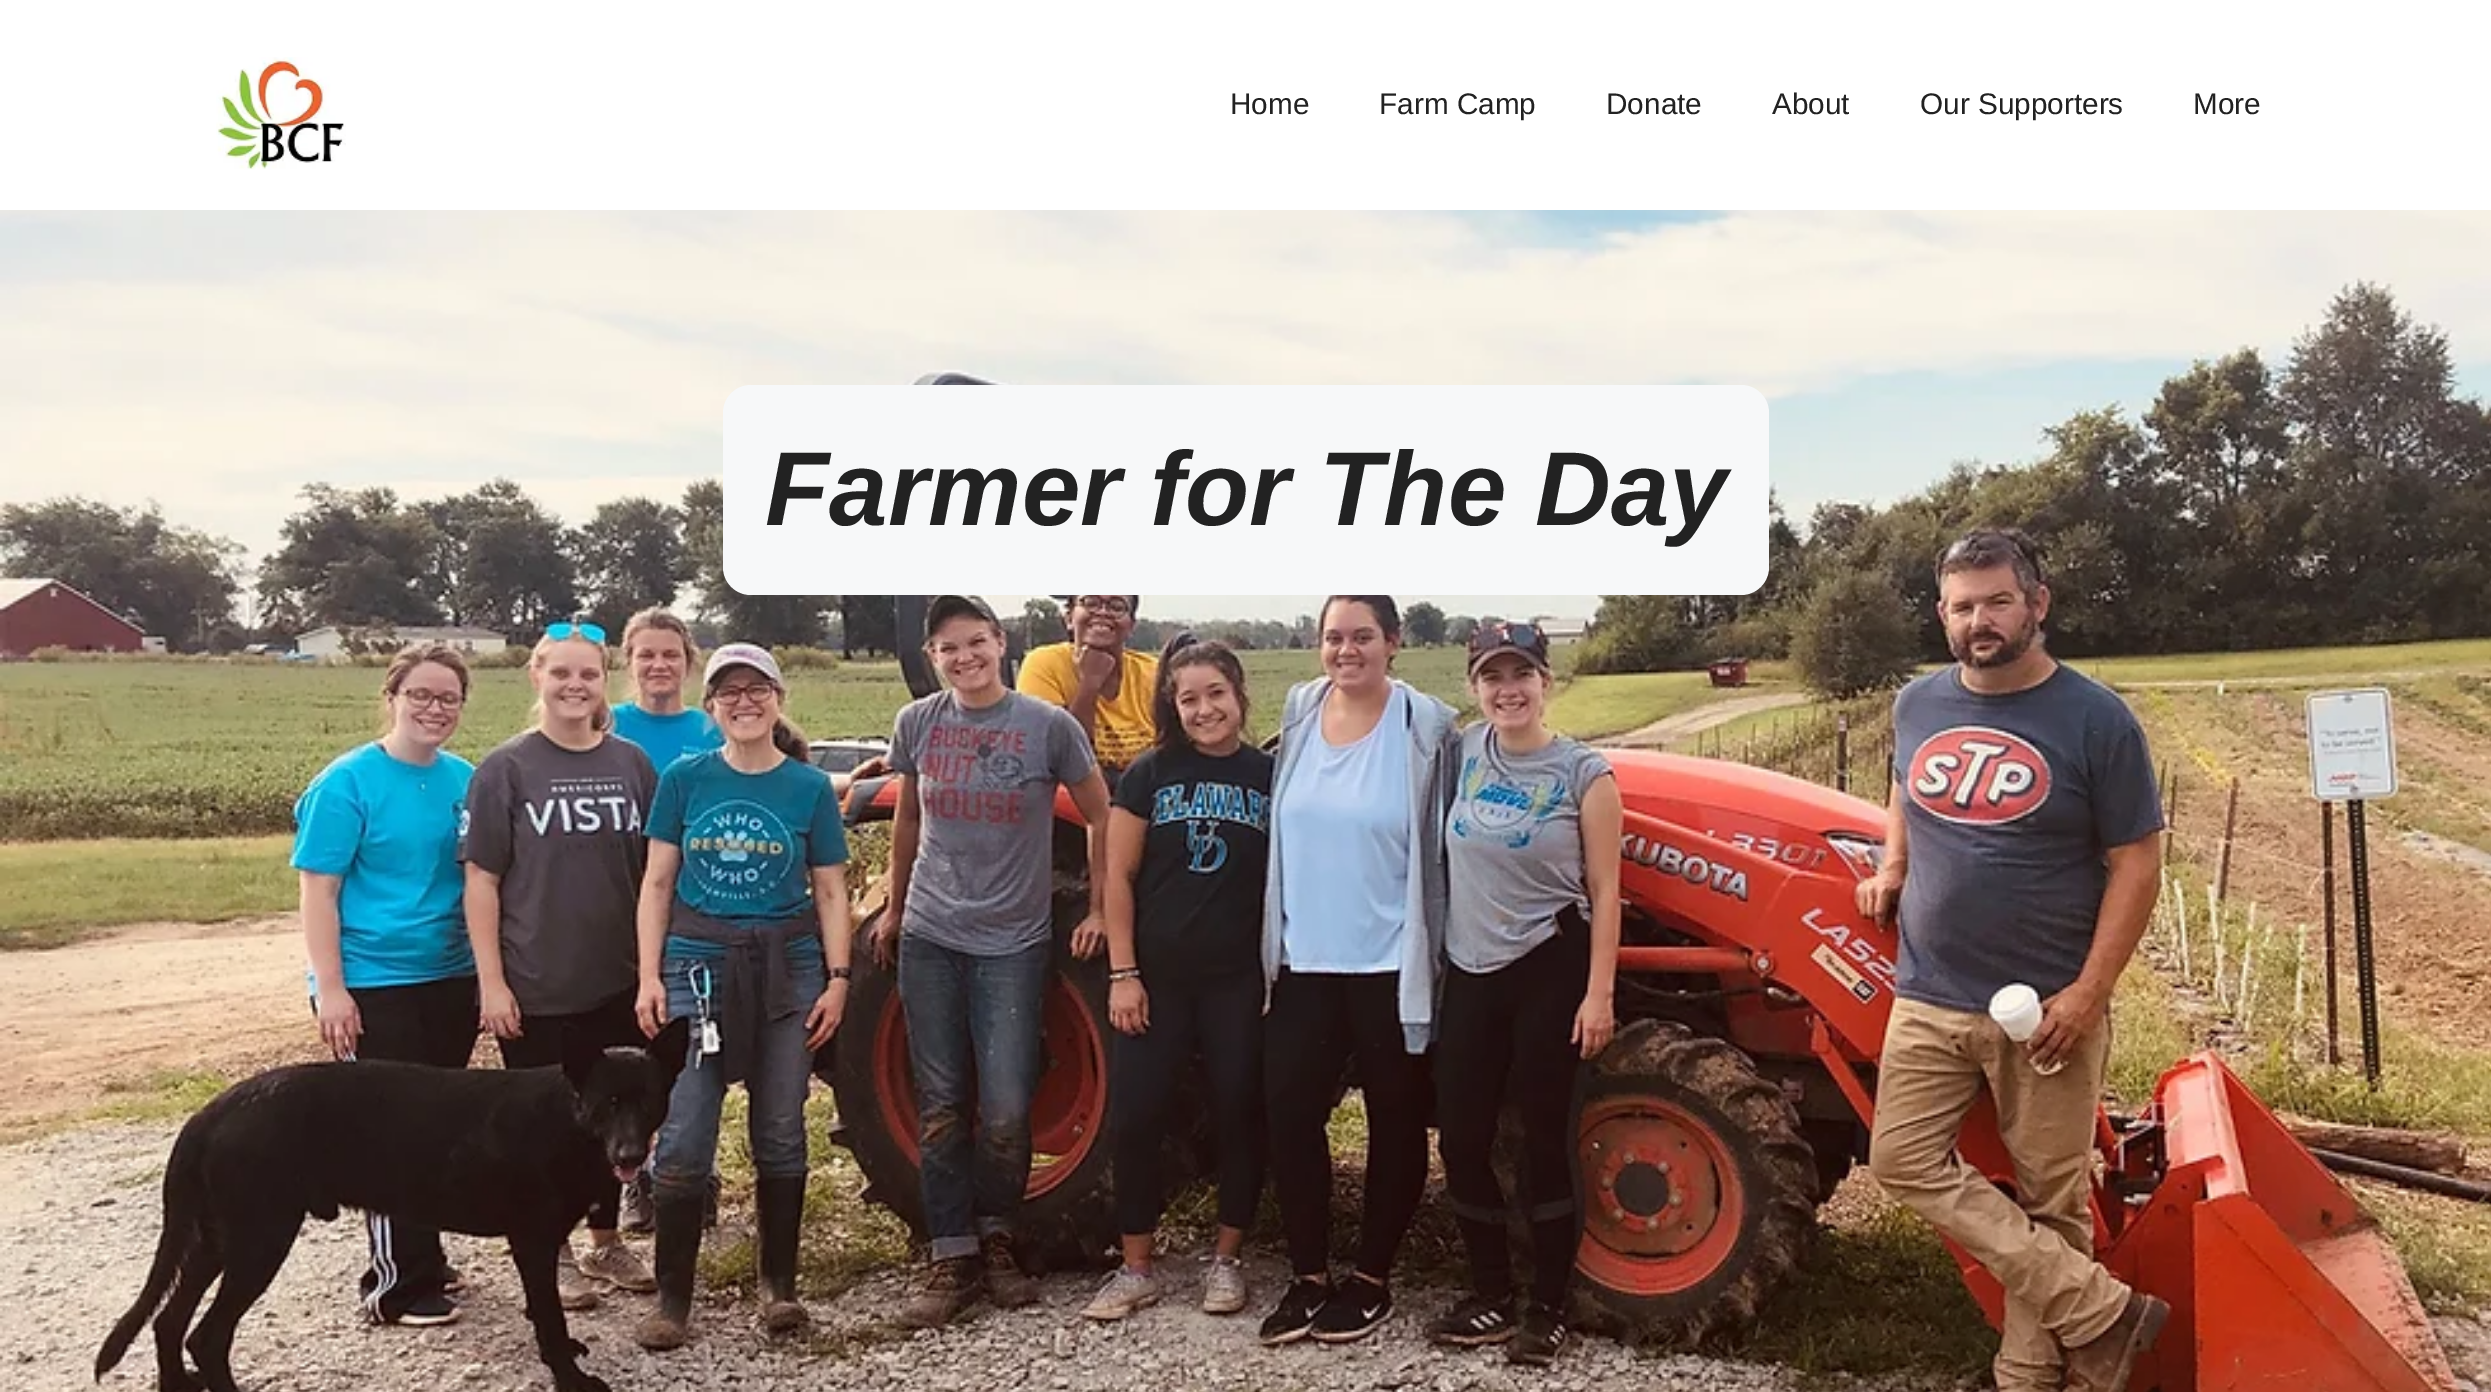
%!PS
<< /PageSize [2491 1392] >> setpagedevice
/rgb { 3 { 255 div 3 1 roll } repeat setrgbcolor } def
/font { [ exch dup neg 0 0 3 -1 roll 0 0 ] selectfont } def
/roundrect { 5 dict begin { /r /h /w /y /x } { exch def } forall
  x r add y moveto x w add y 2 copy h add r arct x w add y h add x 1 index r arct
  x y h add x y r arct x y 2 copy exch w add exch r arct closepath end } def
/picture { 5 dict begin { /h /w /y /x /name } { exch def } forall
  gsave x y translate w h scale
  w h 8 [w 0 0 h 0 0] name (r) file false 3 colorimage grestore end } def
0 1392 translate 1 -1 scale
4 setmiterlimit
255 255 255 rgb
0 0 2491 1392 rectfill
(img/1.rgb) 216 57 130 113 picture
(img/2.rgb) 0 210 2491 1182 picture
247 248 249 rgb
723 385 1046 210 28 roundrect fill
/LiberationSans-Regular 29.75 font
34 34 34 rgb
[
  [(Home) 1230 114]
  [(Farm Camp) 1379 114]
  [(Donate) 1606 114]
  [(About) 1772 114]
  [(Our Supporters) 1920 114]
  [(More) 2193 114]
] { aload pop moveto show } forall
/LiberationSans-BoldItalic 105 font
765 525 moveto (Farmer for The Day) show
showpage
